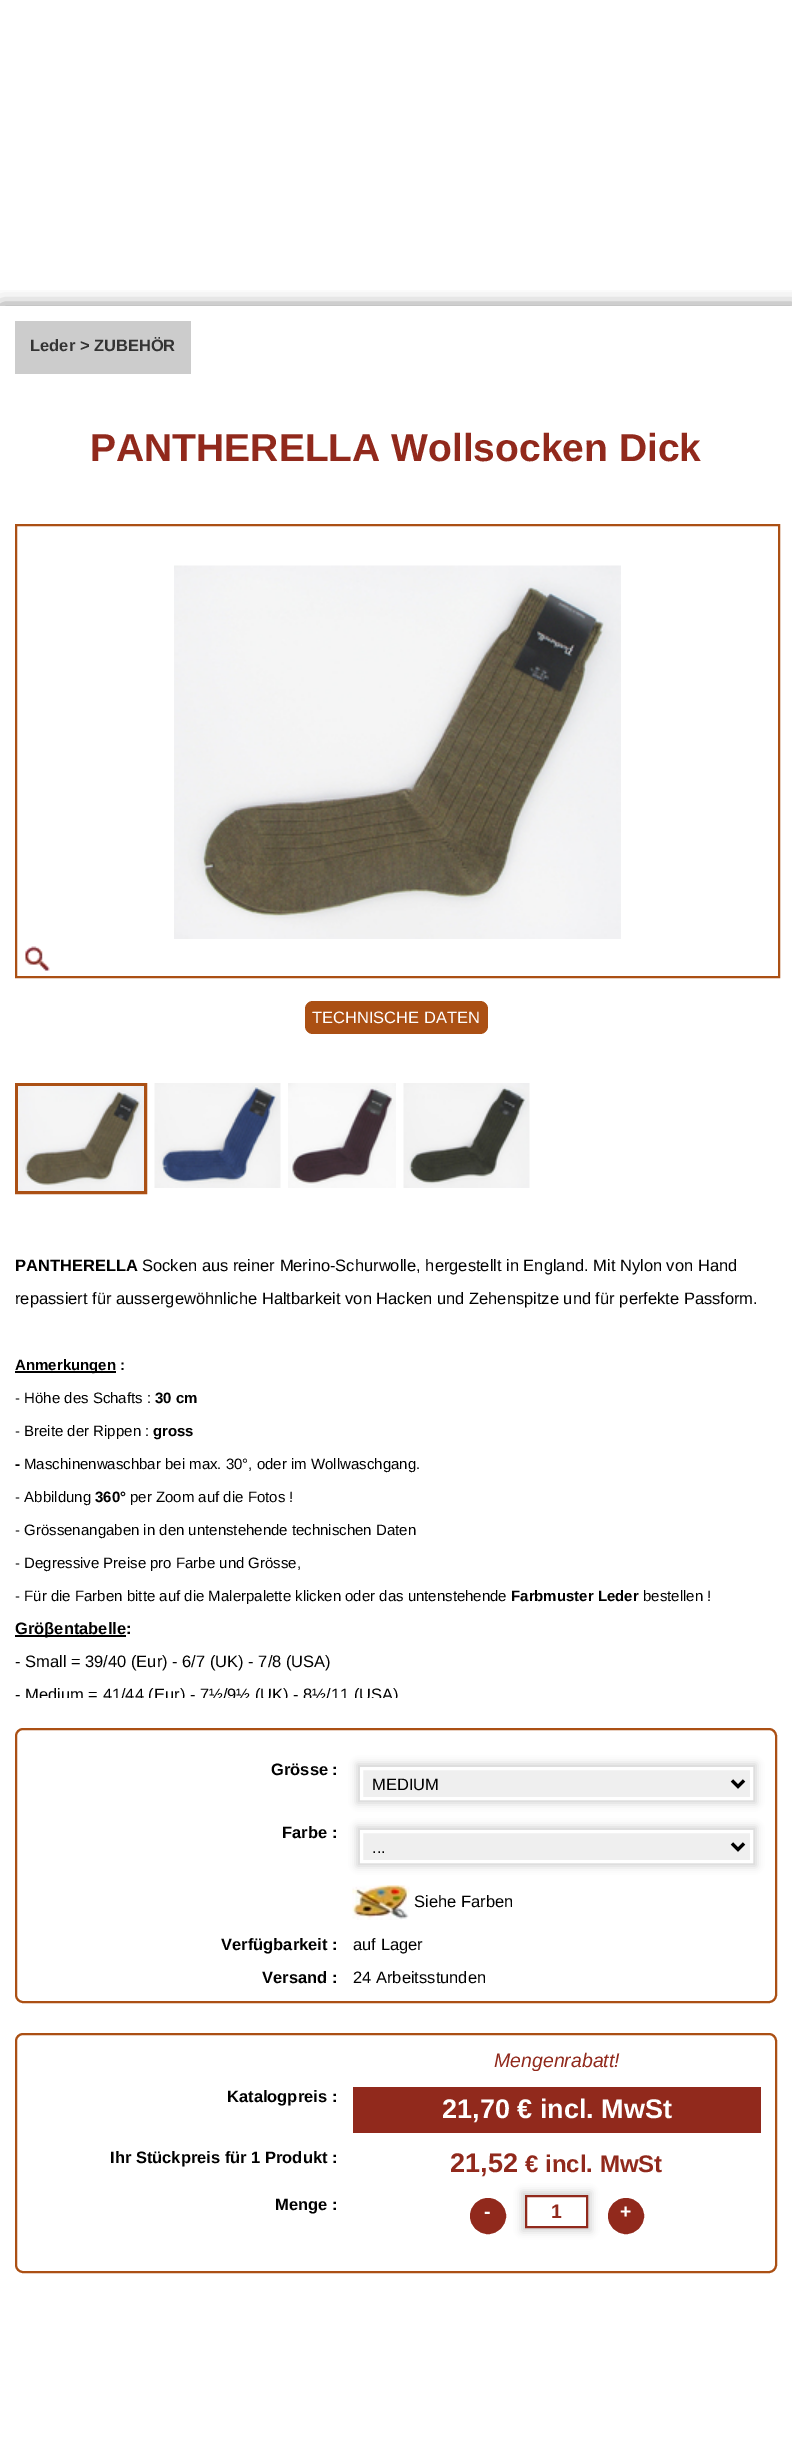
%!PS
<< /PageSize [792 2447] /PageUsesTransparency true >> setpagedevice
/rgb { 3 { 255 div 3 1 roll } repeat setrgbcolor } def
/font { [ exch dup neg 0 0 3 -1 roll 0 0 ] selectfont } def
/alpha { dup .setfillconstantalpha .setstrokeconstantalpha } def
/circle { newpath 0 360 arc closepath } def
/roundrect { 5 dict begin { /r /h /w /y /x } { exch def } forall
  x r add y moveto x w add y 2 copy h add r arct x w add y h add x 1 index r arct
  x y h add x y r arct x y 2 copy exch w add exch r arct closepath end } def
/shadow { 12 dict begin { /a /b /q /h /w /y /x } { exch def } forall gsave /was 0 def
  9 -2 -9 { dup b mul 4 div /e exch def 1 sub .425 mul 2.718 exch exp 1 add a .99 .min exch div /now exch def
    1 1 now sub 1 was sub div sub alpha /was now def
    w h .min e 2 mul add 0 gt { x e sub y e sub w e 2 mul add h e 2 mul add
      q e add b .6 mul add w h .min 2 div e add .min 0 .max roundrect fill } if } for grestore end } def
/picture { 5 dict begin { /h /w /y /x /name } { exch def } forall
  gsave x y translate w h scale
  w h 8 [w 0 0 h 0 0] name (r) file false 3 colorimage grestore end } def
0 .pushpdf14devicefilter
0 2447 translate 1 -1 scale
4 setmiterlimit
255 255 255 rgb
0 0 792 2447 rectfill
gsave
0 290 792 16 rectclip
85 85 85 rgb
2 308 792 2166 0 9 1 shadow
grestore
204 204 204 rgb
15 321 176 53 rectfill
171 80 20 rgb
2 setlinewidth
16 525 763 452 rectstroke
(img/1.rgb) 174 565 447 374 picture
(img/2.rgb) 25 946 25 25 picture
305 1001 183 33 8 roundrect fill
3 setlinewidth
16.5 1084.5 129 108 rectstroke
(img/3.rgb) 18 1086 126 105 picture
(img/4.rgb) 154 1083 127 105 picture
(img/5.rgb) 288 1083 108 105 picture
(img/6.rgb) 403 1083 127 105 picture
0 0 0 rgb
15 1371 101 2 rectfill
15 1635 111 2 rectfill
171 80 20 rgb
2 setlinewidth
16 1729 760 273 7 roundrect stroke
207 207 207 rgb
357 1764 399 39 0 4 1 shadow
239 239 239 rgb
361.5 1768.5 moveto 751.5 1768.5 lineto 751.5 1798.5 lineto 361.5 1798.5 lineto closepath gsave fill grestore
255 255 255 rgb
3 setlinewidth
stroke
0 0 0 rgb
732 1780.5 moveto 738 1786.5 lineto 744 1780.5 lineto stroke
207 207 207 rgb
357 1827 399 39 0 4 1 shadow
239 239 239 rgb
361.5 1831.5 moveto 751.5 1831.5 lineto 751.5 1861.5 lineto 361.5 1861.5 lineto closepath gsave fill grestore
255 255 255 rgb
stroke
0 0 0 rgb
732 1843.5 moveto 738 1849.5 lineto 744 1843.5 lineto stroke
(img/7.rgb) 352 1885 58 35 picture
171 80 20 rgb
2 setlinewidth
16 2034 760 238 7 roundrect stroke
145 41 28 rgb
353 2087 408 46 rectfill
488 2216 16.5 circle gsave fill grestore
3 setlinewidth
stroke
207 207 207 rgb
522 2192 69 39 0 4 1 shadow
255 255 255 rgb
526 2196 moveto 587 2196 lineto 587 2227 lineto 526 2227 lineto closepath gsave fill grestore
145 41 28 rgb
2 setlinewidth
stroke
626 2216 16.5 circle gsave fill grestore
3 setlinewidth
stroke
/LiberationSans-Bold 16.5 font
51 51 51 rgb
30 351 moveto (Leder > ZUBEHÖR) show
/LiberationSans-Bold 39 font
145 41 28 rgb
90 461 moveto (PANTHERELLA Wollsocken Dick) show
/LiberationSans-Regular 16.5 font
255 255 255 rgb
312 1023 moveto (TECHNISCHE DATEN) show
/LiberationSans-Bold 16.5 font
0 0 0 rgb
15 1271 moveto (PANTHERELLA) show
/LiberationSans-Regular 16.5 font
142 1271 moveto (Socken aus reiner Merino-Schurwolle, hergestellt in England. Mit Nylon von Hand) show
15 1304 moveto (repassiert für aussergewöhnliche Haltbarkeit von Hacken und Zehenspitze und für perfekte Passform.) show
/LiberationSans-Bold 15 font
15 1370 moveto (Anmerkungen :) show
/LiberationSans-Regular 15 font
15 1403 moveto (- Höhe des Schafts :) show
/LiberationSans-Bold 15 font
155 1403 moveto (30 cm) show
/LiberationSans-Regular 15 font
15 1436 moveto (- Breite der Rippen :) show
/LiberationSans-Bold 15 font
153 1436 moveto (gross) show
15 1469 moveto (-) show
/LiberationSans-Regular 15 font
24 1469 moveto (Maschinenwaschbar bei max. 30°, oder im Wollwaschgang.) show
15 1502 moveto (- Abbildung) show
/LiberationSans-Bold 15 font
95 1502 moveto (360°) show
/LiberationSans-Regular 15 font
[
  [(per Zoom auf die Fotos !) 130 1502]
  [(- Grössenangaben in den untenstehende technischen Daten) 15 1535]
  [(- Degressive Preise pro Farbe und Grösse,) 15 1568]
  [(- Für die Farben bitte auf die Malerpalette klicken oder das untenstehende) 15 1601]
] { aload pop moveto show } forall
/LiberationSans-Bold 15 font
511 1601 moveto (Farbmuster Leder) show
/LiberationSans-Regular 15 font
643 1601 moveto (bestellen !) show
/LiberationSans-Bold 16.5 font
15 1634 moveto (Gröβentabelle:) show
/LiberationSans-Regular 16.5 font
15 1667 moveto (- Small = 39/40 \(Eur\) - 6/7 \(UK\) - 7/8 \(USA\)) show
gsave
15 1248 762 450 rectclip
15 1700 moveto (- Medium = 41/44 \(Eur\) - 7½/9½ \(UK\) - 8½/11 \(USA\)) show
grestore
/LiberationSans-Bold 16.5 font
271 1775 moveto (Grösse :) show
/LiberationSans-Regular 16.5 font
372 1790 moveto (MEDIUM) show
/LiberationSans-Bold 16.5 font
282 1838 moveto (Farbe :) show
/LiberationSans-Regular 16.5 font
372 1853 moveto (...) show
414 1907 moveto (Siehe Farben) show
/LiberationSans-Bold 16.5 font
221 1950 moveto (Verfügbarkeit :) show
/LiberationSans-Regular 16.5 font
353 1950 moveto (auf Lager) show
/LiberationSans-Bold 16.5 font
262 1983 moveto (Versand :) show
/LiberationSans-Regular 16.5 font
353 1983 moveto (24 Arbeitsstunden) show
/LiberationSans-Italic 19.5 font
145 41 28 rgb
494 2067 moveto (Mengenrabatt!) show
/LiberationSans-Bold 16.5 font
0 0 0 rgb
227 2102 moveto (Katalogpreis :) show
/LiberationSans-Bold 27 font
255 255 255 rgb
442 2118 moveto (21,70 € incl. MwSt) show
/LiberationSans-Bold 16.5 font
0 0 0 rgb
110 2163 moveto (Ihr Stückpreis für 1 Produkt :) show
/LiberationSans-Bold 27 font
145 41 28 rgb
450 2172 moveto (21,52) show
/LiberationSans-Bold 24 font
525 2172 moveto (€ incl. MwSt) show
/LiberationSans-Bold 16.5 font
0 0 0 rgb
275 2210 moveto (Menge :) show
/LiberationSans-Bold 19.5 font
255 255 255 rgb
484 2218 moveto (-) show
145 41 28 rgb
551 2218 moveto (1) show
255 255 255 rgb
620 2218 moveto (+) show
.poppdf14devicefilter showpage
